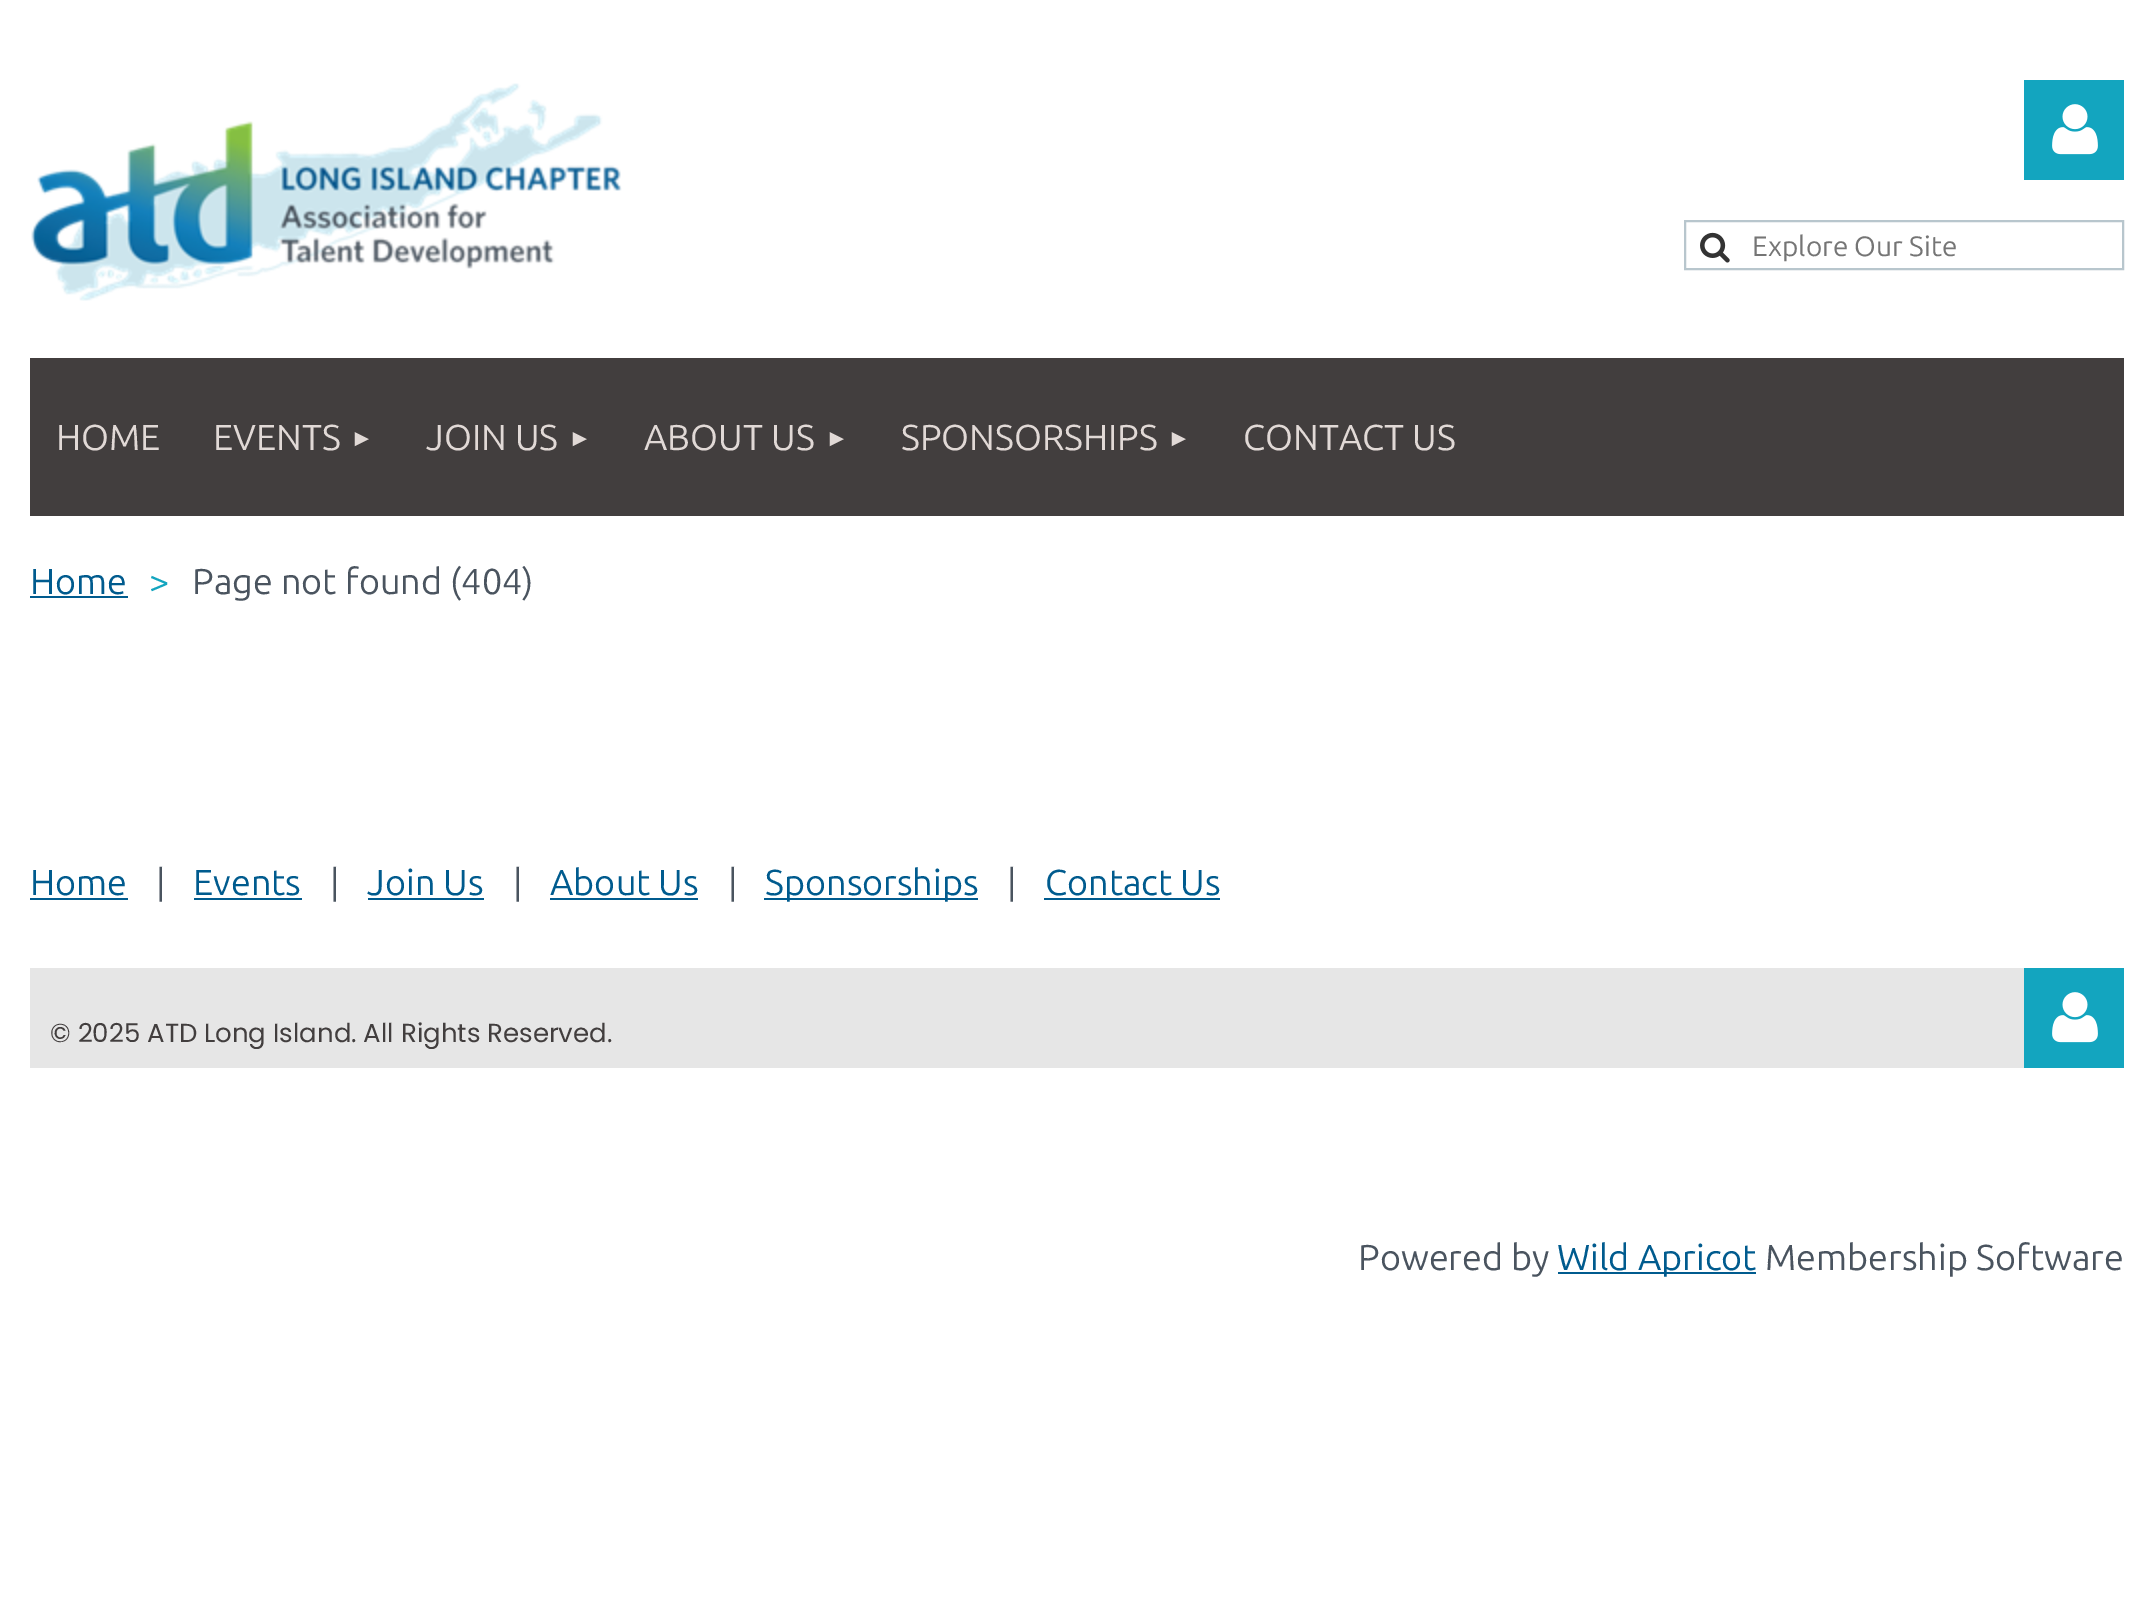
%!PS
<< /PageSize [2153 1619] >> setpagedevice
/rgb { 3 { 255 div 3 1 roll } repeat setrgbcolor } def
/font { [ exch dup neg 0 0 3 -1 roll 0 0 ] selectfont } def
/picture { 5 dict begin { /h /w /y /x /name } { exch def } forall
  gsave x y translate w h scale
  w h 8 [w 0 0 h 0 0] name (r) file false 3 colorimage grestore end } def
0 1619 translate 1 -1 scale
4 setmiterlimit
255 255 255 rgb
0 0 2153 1619 rectfill
(img/1.rgb) 31 83 591 218 picture
19 165 191 rgb
2024 80 100 100 rectfill
(img/2.rgb) 2052 104 46 51 picture
184 198 205 rgb
2 setlinewidth
1685 221 438 48 rectstroke
(img/3.rgb) 1700 232 30 31 picture
[
  [30 358 2094 158 66 62 62]
  [30 596 98 2 0 91 142]
  [30 898 98 2 0 91 142]
  [194 898 108 2 0 91 142]
  [368 898 116 2 0 91 142]
  [550 898 148 2 0 91 142]
  [764 898 214 2 0 91 142]
  [1044 898 176 2 0 91 142]
  [30 968 1994 100 230 230 230]
  [2024 968 100 100 19 165 191]
] { aload pop rgb rectfill } forall
(img/2.rgb) 2052 992 46 51 picture
0 91 142 rgb
1558 1272 198 2 rectfill
/Ubuntu-Regular 28 font
117 117 117 rgb
1752 256 moveto (Explore Our Site) show
/Ubuntu-Regular 36 font
225 217 214 rgb
56 450 moveto (HOME) show
213 450 moveto (EVENTS) show
/LiberationSans-Regular 24 font
350 446 moveto (►) show
/Ubuntu-Regular 36 font
426 450 moveto (JOIN US) show
/LiberationSans-Regular 24 font
568 446 moveto (►) show
/Ubuntu-Regular 36 font
644 450 moveto (ABOUT US) show
/LiberationSans-Regular 24 font
825 446 moveto (►) show
/Ubuntu-Regular 36 font
901 450 moveto (SPONSORSHIPS) show
/LiberationSans-Regular 24 font
1167 446 moveto (►) show
/Ubuntu-Regular 36 font
1243 450 moveto (CONTACT US) show
0 91 142 rgb
30 594 moveto (Home) show
19 165 191 rgb
149 594 moveto (>) show
74 84 95 rgb
192 594 moveto (Page not found \(404\)) show
0 91 142 rgb
30 895 moveto (Home) show
74 84 95 rgb
156 895 moveto (|) show
0 91 142 rgb
193 895 moveto (Events) show
74 84 95 rgb
330 895 moveto (|) show
0 91 142 rgb
367 895 moveto (Join Us) show
74 84 95 rgb
513 895 moveto (|) show
0 91 142 rgb
550 895 moveto (About Us) show
74 84 95 rgb
728 895 moveto (|) show
0 91 142 rgb
765 895 moveto (Sponsorships) show
74 84 95 rgb
1007 895 moveto (|) show
0 91 142 rgb
1045 895 moveto (Contact Us) show
/Poppins-Regular 26 font
66 62 62 rgb
50 1042 moveto (© 2025 ATD Long Island. All Rights Reserved.) show
/Ubuntu-Regular 36 font
74 84 95 rgb
1358 1270 moveto (Powered by) show
0 91 142 rgb
1557 1270 moveto (Wild Apricot) show
74 84 95 rgb
1765 1270 moveto (Membership Software) show
showpage
